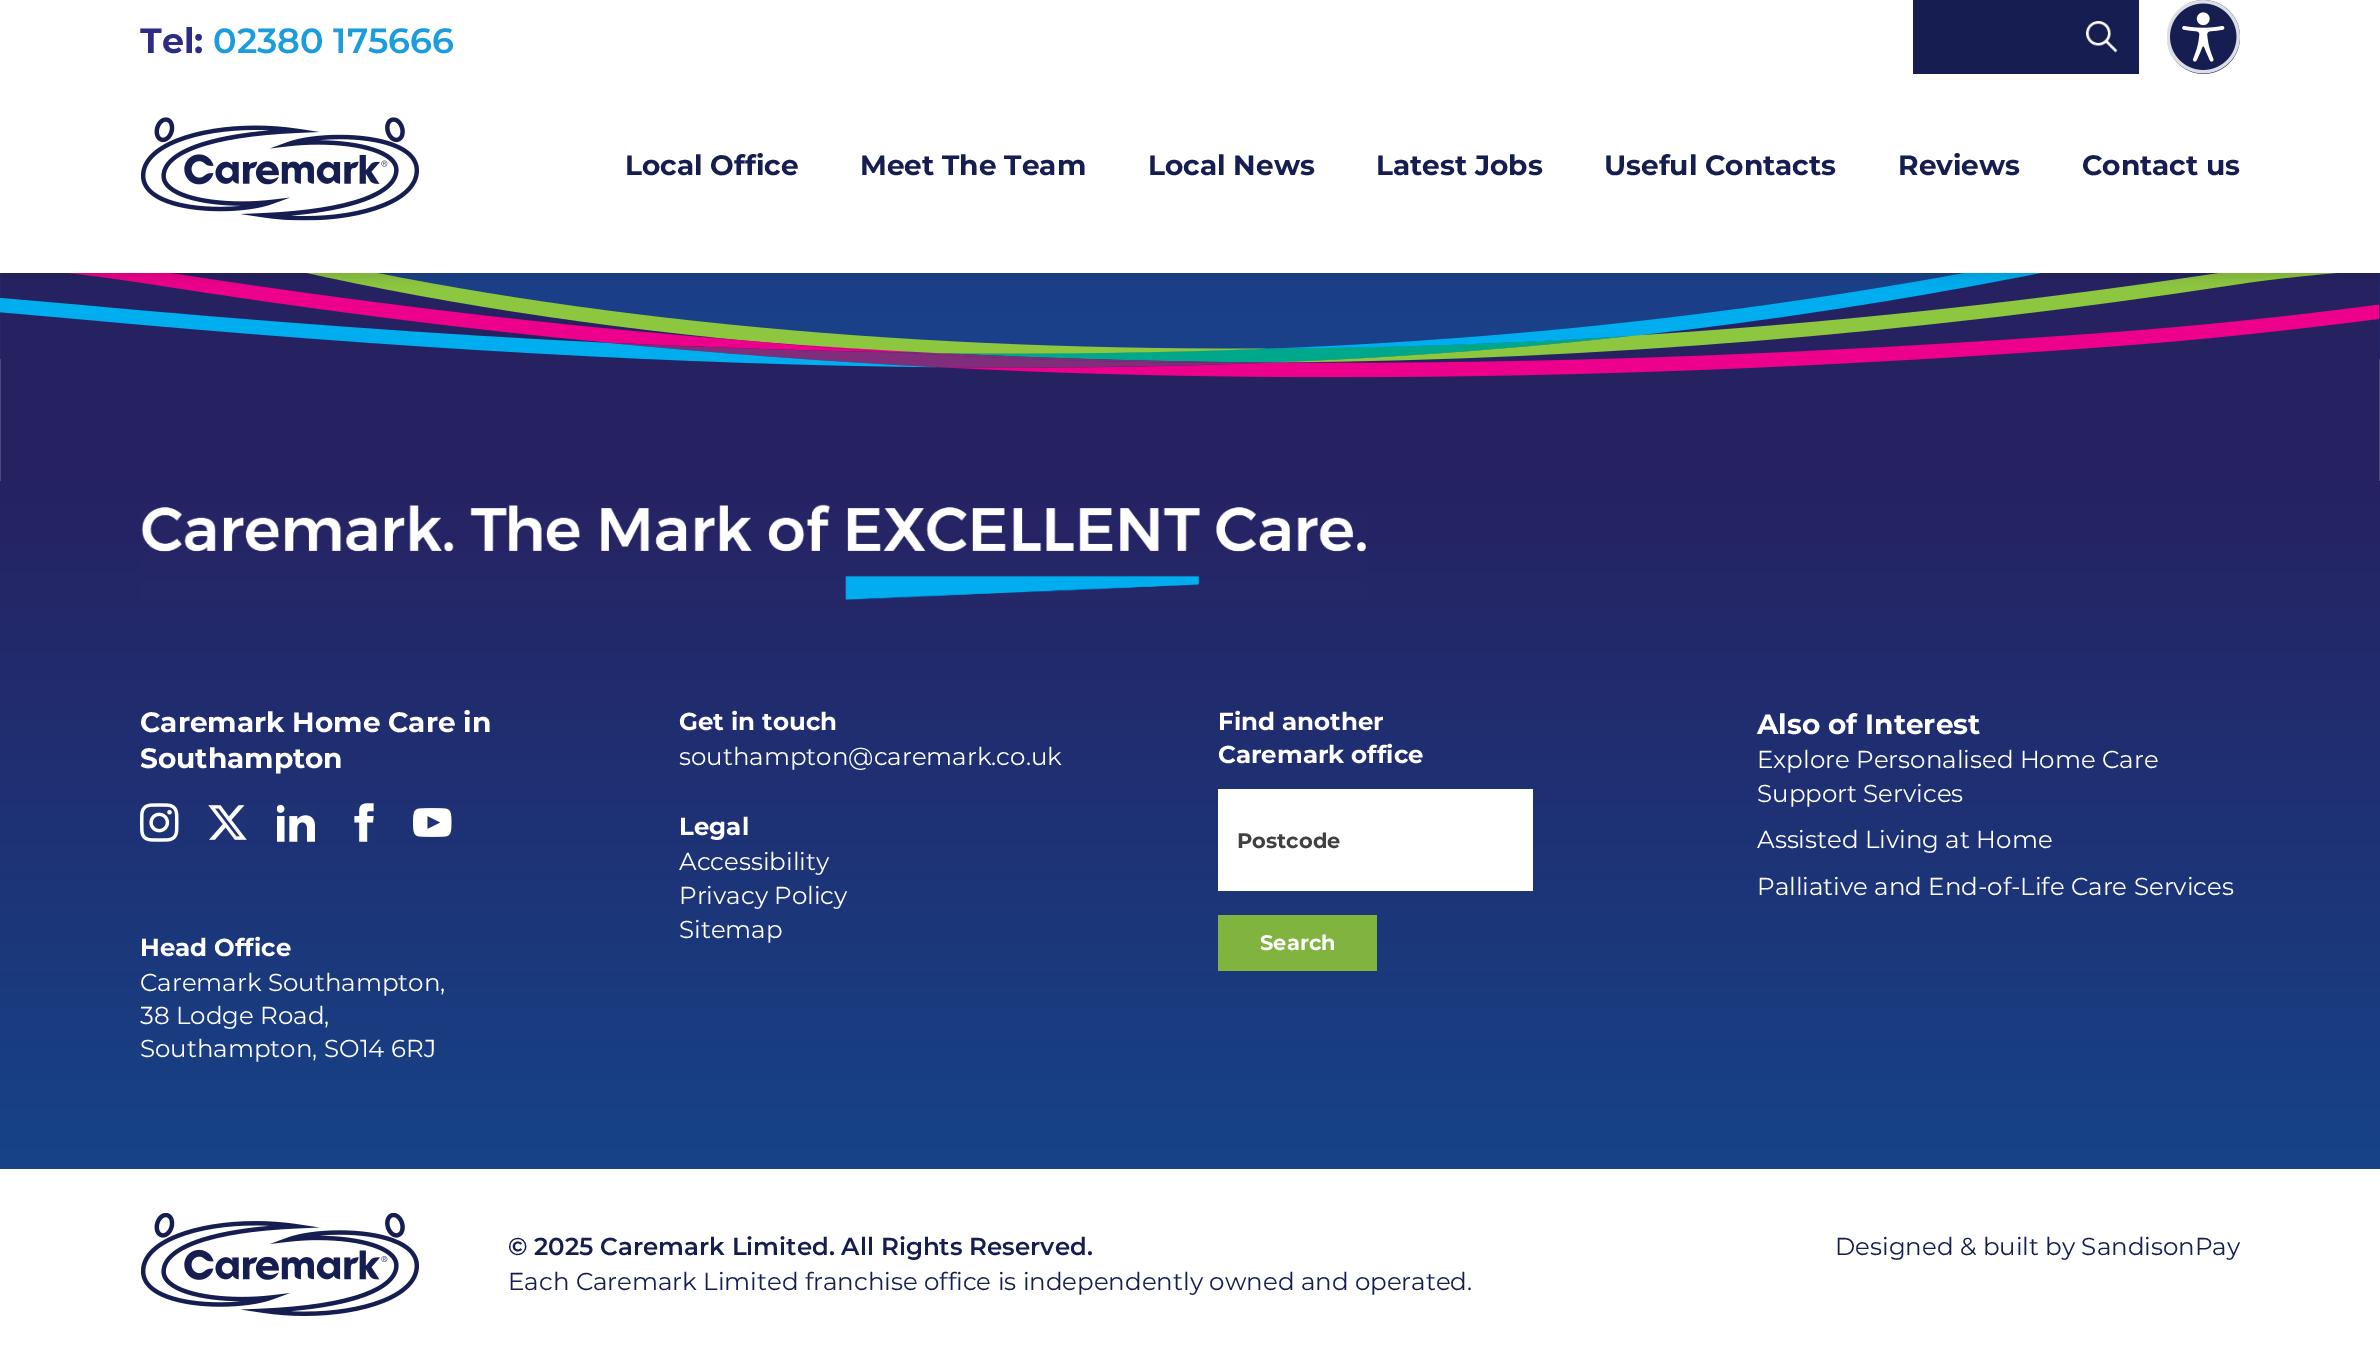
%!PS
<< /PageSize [2380 1361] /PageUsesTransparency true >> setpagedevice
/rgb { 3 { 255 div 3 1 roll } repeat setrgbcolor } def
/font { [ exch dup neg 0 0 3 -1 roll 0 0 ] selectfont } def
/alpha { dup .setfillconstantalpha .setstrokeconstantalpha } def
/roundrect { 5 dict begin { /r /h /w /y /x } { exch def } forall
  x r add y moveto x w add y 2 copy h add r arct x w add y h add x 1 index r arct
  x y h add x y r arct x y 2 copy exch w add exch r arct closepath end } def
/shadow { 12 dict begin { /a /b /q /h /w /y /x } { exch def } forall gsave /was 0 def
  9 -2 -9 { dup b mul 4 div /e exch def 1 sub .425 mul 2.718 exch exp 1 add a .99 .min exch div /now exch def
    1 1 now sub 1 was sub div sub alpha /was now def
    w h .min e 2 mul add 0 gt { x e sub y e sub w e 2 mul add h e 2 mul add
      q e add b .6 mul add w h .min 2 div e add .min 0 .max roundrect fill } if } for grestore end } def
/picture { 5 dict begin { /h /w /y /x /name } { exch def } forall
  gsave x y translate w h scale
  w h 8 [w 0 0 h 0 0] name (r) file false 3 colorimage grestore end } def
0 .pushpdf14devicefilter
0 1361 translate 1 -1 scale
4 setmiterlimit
255 255 255 rgb
0 0 2380 1361 rectfill
gsave 0 273 moveto 2380 273 lineto 2380 359 lineto 0 359 lineto closepath clip newpath
<< /ShadingType 2 /ColorSpace /DeviceRGB /Coords [1190 -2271 1190 359] /Extend [true true] /Function << /FunctionType 2 /Domain [0 1] /C0 [0.157 0.141 0.365] /C1 [0.102 0.251 0.537] /N 1 >> >> shfill grestore
(img/4.rgb) 0 273 2380 208 picture
0 0 0 rgb
0 5 2380 273 0 5 0.1 shadow
255 255 255 rgb
0 0 2380 273 rectfill
22 29 80 rgb
1913 0 226 74 rectfill
(img/1.rgb) 2086 21 32 32 picture
2167 0 73 74 36.5 roundrect fill
(img/2.rgb) 2167 0 73 74 picture
(img/3.rgb) 141 117 278 104 picture
gsave 0 481 moveto 2380 481 lineto 2380 1169 lineto 0 1169 lineto closepath clip newpath
<< /ShadingType 2 /ColorSpace /DeviceRGB /Coords [1190 481 1190 1169] /Extend [true true] /Function << /FunctionType 2 /Domain [0 1] /C0 [0.149 0.133 0.384] /C1 [0.09 0.263 0.533] /N 1 >> >> shfill grestore
(img/5.rgb) 141 504 1225 96 picture
(img/6.rgb) 140 803 39 39 picture
(img/7.rgb) 208 805 39 35 picture
(img/8.rgb) 277 804 38 38 picture
(img/9.rgb) 354 803 20 39 picture
(img/10.rgb) 413 808 39 29 picture
255 255 255 rgb
1218 789 315 102 rectfill
128 180 63 rgb
1218 915 159 56 rectfill
(img/11.rgb) 141 1213 278 103 picture
/Montserrat-Bold 35 font
45 43 132 rgb
140 53 moveto (Tel:) show
/Montserrat-SemiBold 35 font
26 156 221 rgb
213 53 moveto (02380 175666) show
/Montserrat-Bold 28 font
22 29 80 rgb
[
  [(Local Office) 625 175]
  [(Meet The Team) 860 175]
  [(Local News) 1148 175]
  [(Latest Jobs) 1376 175]
  [(Useful Contacts) 1604 175]
  [(Reviews) 1898 175]
  [(Contact us) 2082 175]
] { aload pop moveto show } forall
255 255 255 rgb
140 732 moveto (Caremark Home Care in) show
140 768 moveto (Southampton) show
/Montserrat-Bold 24.5 font
140 956 moveto (Head Office) show
/Montserrat-Regular 24.5 font
[
  [(Caremark Southampton,) 140 991]
  [(38 Lodge Road,) 140 1024]
  [(Southampton, SO14 6RJ) 140 1057]
] { aload pop moveto show } forall
/Montserrat-Bold 24.5 font
679 730 moveto (Get in touch) show
/Montserrat-Regular 24.5 font
679 765 moveto (southampton@caremark.co.uk) show
/Montserrat-Bold 24.5 font
679 835 moveto (Legal) show
/Montserrat-Regular 24.5 font
[
  [(Accessibility) 679 870]
  [(Privacy Policy) 679 904]
  [(Sitemap) 679 938]
] { aload pop moveto show } forall
/Montserrat-Bold 24.5 font
1218 730 moveto (Find another) show
1218 763 moveto (Caremark office) show
/Montserrat-Bold 21 font
65 65 65 rgb
1237 848 moveto (Postcode) show
255 255 255 rgb
1260 950 moveto (Search) show
/Montserrat-Bold 28 font
1757 734 moveto (Also of Interest) show
/Montserrat-Regular 24.5 font
[
  [(Explore Personalised Home Care) 1757 768]
  [(Support Services) 1757 802]
  [(Assisted Living at Home) 1757 848]
  [(Palliative and End-of-Life Care Services) 1757 895]
] { aload pop moveto show } forall
/Montserrat-SemiBold 24.5 font
22 29 80 rgb
508 1255 moveto (© 2025 Caremark Limited. All Rights Reserved.) show
/Montserrat-Regular 24.5 font
508 1290 moveto (Each Caremark Limited franchise office is independently owned and operated.) show
1835 1255 moveto (Designed & built by SandisonPay) show
.poppdf14devicefilter showpage
